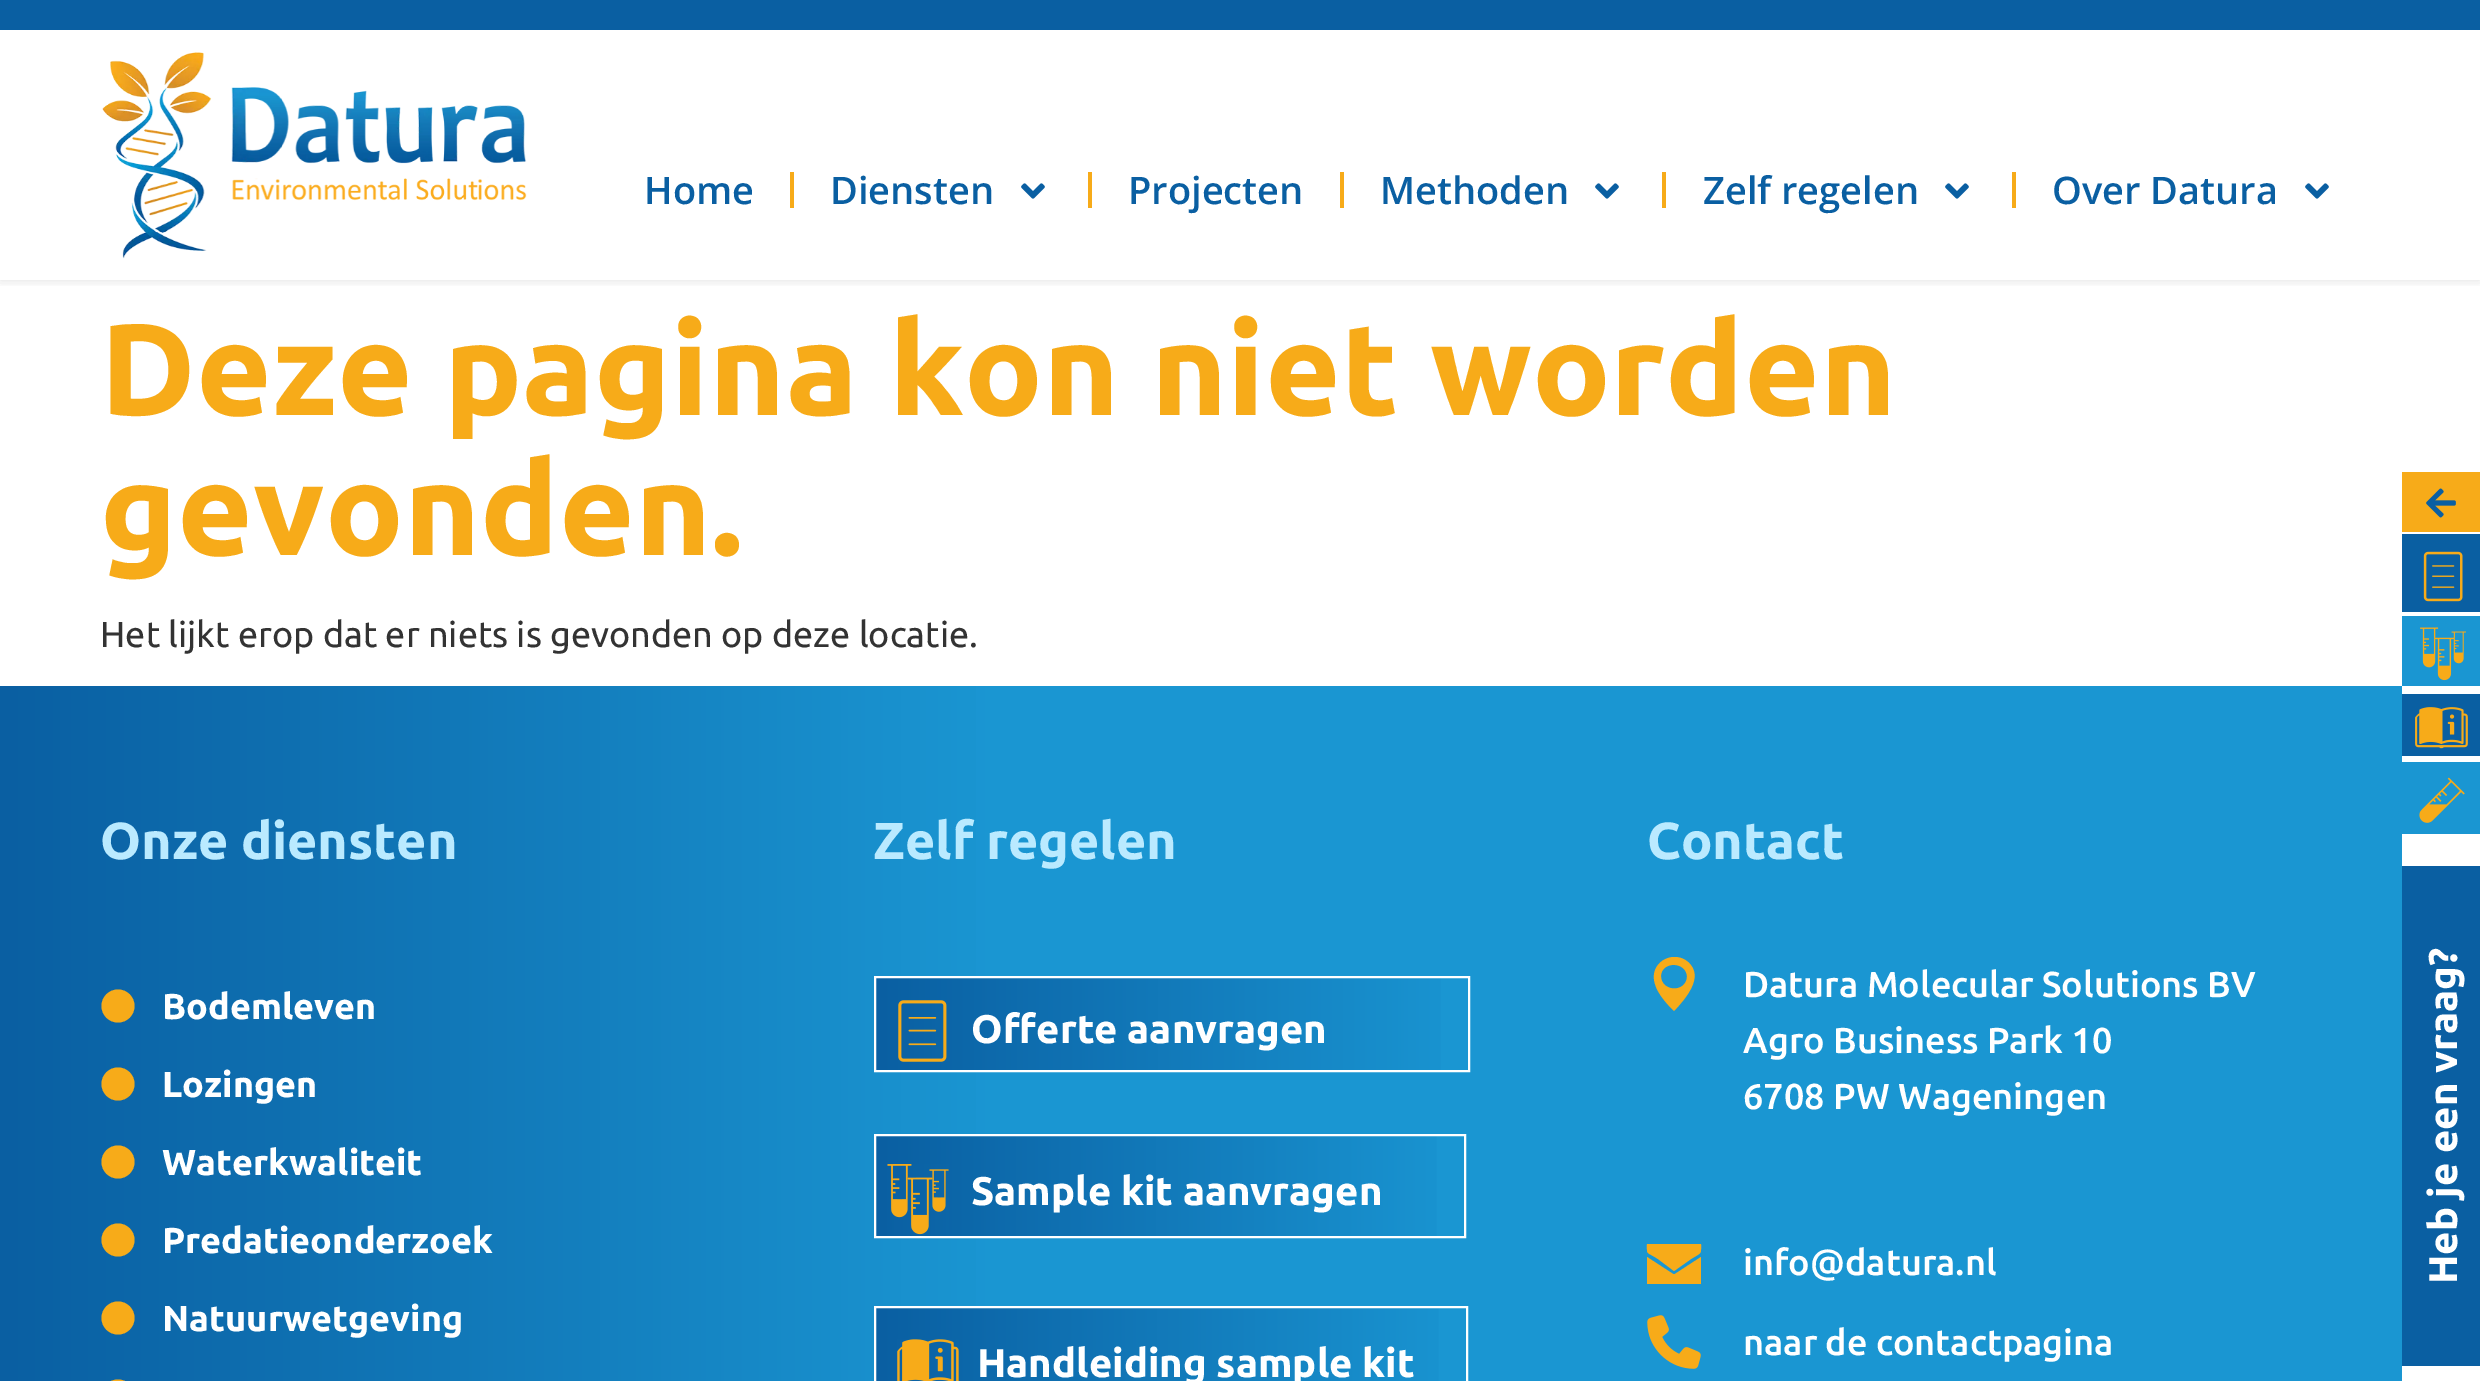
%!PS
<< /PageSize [2480 1381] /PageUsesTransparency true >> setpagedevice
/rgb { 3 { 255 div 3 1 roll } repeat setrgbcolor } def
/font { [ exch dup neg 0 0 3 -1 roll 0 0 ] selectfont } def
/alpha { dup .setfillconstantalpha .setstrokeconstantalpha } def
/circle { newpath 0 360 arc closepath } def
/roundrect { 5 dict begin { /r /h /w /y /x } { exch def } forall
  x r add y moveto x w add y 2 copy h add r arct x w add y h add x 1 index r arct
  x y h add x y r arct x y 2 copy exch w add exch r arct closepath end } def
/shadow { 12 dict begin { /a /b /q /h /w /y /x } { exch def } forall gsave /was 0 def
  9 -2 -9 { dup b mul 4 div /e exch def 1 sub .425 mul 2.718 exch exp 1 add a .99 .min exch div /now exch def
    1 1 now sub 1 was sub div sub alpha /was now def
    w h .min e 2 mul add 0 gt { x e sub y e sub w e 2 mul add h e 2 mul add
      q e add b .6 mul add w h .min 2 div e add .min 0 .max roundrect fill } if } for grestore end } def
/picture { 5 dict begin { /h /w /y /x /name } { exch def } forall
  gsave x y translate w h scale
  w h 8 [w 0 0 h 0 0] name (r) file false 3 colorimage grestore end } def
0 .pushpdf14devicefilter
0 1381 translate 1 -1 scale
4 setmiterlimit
255 255 255 rgb
0 0 2480 1381 rectfill
gsave
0 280 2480 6 rectclip
0 0 0 rgb
0 0 2480 280 0 6 0.12 shadow
grestore
10 95 162 rgb
0 0 2480 30 rectfill
(img/1.rgb) 102 52 425 207 picture
247 171 25 rgb
790 172 4 36 rectfill
(img/2.rgb) 1021 183 24 16 picture
1088 172 4 36 rectfill
1340 172 4 36 rectfill
(img/2.rgb) 1595 183 24 16 picture
1662 172 4 36 rectfill
(img/2.rgb) 1945 183 24 16 picture
2012 172 4 36 rectfill
(img/2.rgb) 2305 183 24 16 picture
gsave 0 686 moveto 2402 686 lineto 2402 1381 lineto 0 1381 lineto closepath clip newpath
<< /ShadingType 2 /ColorSpace /DeviceRGB /Coords [0 1300 2480 1300] /Extend [true true] /Function << /FunctionType 3 /Domain [0 1] /Functions [<< /FunctionType 2 /Domain [0 1] /C0 [0.039 0.373 0.635] /C1 [0.102 0.588 0.824] /N 1 >> << /FunctionType 2 /Domain [0 1] /C0 [0.102 0.588 0.824] /C1 [0.102 0.588 0.824] /N 1 >>] /Bounds [0.4] /Encode [0 1 0 1] >> >> shfill grestore
118 1006 16.5 circle fill
118 1084 16.5 circle fill
118 1162 16.5 circle fill
118 1240 16.5 circle fill
118 1318 16.5 circle fill
118 1396 16.5 circle fill
gsave 876 978 moveto 1441 978 lineto 1441 1070 lineto 876 1070 lineto closepath clip newpath
<< /ShadingType 2 /ColorSpace /DeviceRGB /Coords [876 1024 1468 1024] /Extend [true true] /Function << /FunctionType 2 /Domain [0 1] /C0 [0.039 0.373 0.635] /C1 [0.102 0.588 0.824] /N 1 >> >> shfill grestore
255 255 255 rgb
2 setlinewidth
875 977 594 94 rectstroke
(img/3.rgb) 898 1000 49 62 picture
gsave 876 1136 moveto 1437 1136 lineto 1437 1236 lineto 876 1236 lineto closepath clip newpath
<< /ShadingType 2 /ColorSpace /DeviceRGB /Coords [876 1186 1464 1186] /Extend [true true] /Function << /FunctionType 2 /Domain [0 1] /C0 [0.039 0.373 0.635] /C1 [0.102 0.588 0.824] /N 1 >> >> shfill grestore
875 1135 590 102 rectstroke
(img/4.rgb) 887 1164 62 71 picture
gsave 876 1308 moveto 1439 1308 lineto 1439 1381 lineto 876 1381 lineto closepath clip newpath
<< /ShadingType 2 /ColorSpace /DeviceRGB /Coords [876 1359 1466 1359] /Extend [true true] /Function << /FunctionType 2 /Domain [0 1] /C0 [0.039 0.373 0.635] /C1 [0.102 0.588 0.824] /N 1 >> >> shfill grestore
875 1307 592 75 rectstroke
(img/5.rgb) 897 1339 62 42 picture
247 171 25 rgb
1687 977 moveto 1686 993 1661 992 1661 976 curveto 1661 961 1687 961 1687 977 curveto 1688 962 moveto 1674 950 1652 961 1654 979 curveto 1655 991 1666 1003 1674 1011 curveto 1685 999 1705 977 1688 962 curveto fill
1647 1244 moveto 1701 1244 lineto 1701 1255 1702 1252 1691 1259 curveto 1674 1271 lineto 1658 1259 lineto 1646 1251 1647 1256 1647 1244 curveto 1701 1257 moveto 1678 1272 lineto 1673 1275 1675 1275 1670 1272 curveto 1647 1257 lineto 1647 1284 lineto 1701 1284 lineto closepath fill
(img/6.rgb) 1647 1315 54 54 picture
2402 472 78 60 rectfill
(img/7.rgb) 2426 488 30 30 picture
10 95 162 rgb
2402 534 78 78 rectfill
(img/8.rgb) 2423 551 40 51 picture
26 150 210 rgb
2402 616 78 70 rectfill
(img/9.rgb) 2420 627 46 54 picture
10 95 162 rgb
2402 694 78 62 rectfill
(img/10.rgb) 2415 707 53 42 picture
26 150 210 rgb
2402 762 78 72 rectfill
(img/11.rgb) 2419 777 46 46 picture
10 95 162 rgb
2402 866 78 500 rectfill
/OpenSans-SemiBold 38 font
[
  [(Home) 644 204]
  [(Diensten) 830 204]
  [(Projecten) 1128 204]
  [(Methoden) 1380 204]
  [(Zelf regelen) 1703 204]
  [(Over Datura) 2052 204]
] { aload pop moveto show } forall
/Ubuntu-Bold 130 font
247 171 25 rgb
100 415 moveto (Deze pagina kon niet worden) show
100 555 moveto (gevonden.) show
/Ubuntu-Regular 36 font
51 51 51 rgb
100 647 moveto (Het lijkt erop dat er niets is gevonden op deze locatie.) show
/Ubuntu-Bold 52 font
186 234 255 rgb
100 859 moveto (Onze diensten) show
/Ubuntu-Bold 36 font
255 255 255 rgb
[
  [(Bodemleven) 162 1019]
  [(Lozingen) 162 1097]
  [(Waterkwaliteit) 162 1175]
  [(Predatieonderzoek) 162 1253]
  [(Natuurwetgeving) 162 1331]
] { aload pop moveto show } forall
/Ubuntu-Bold 52 font
186 234 255 rgb
873 859 moveto (Zelf regelen) show
/Ubuntu-Bold 40 font
255 255 255 rgb
[
  [(Offerte aanvragen) 971 1043]
  [(Sample kit aanvragen) 971 1205]
  [(Handleiding sample kit) 977 1377]
] { aload pop moveto show } forall
/Ubuntu-Bold 52 font
186 234 255 rgb
1647 859 moveto (Contact) show
/Ubuntu-Medium 36 font
255 255 255 rgb
[
  [(Datura Molecular Solutions BV) 1743 997]
  [(Agro Business Park 10) 1743 1053]
  [(6708 PW Wageningen) 1743 1109]
  [(info@datura.nl) 1743 1275]
  [(naar de contactpagina) 1743 1355]
] { aload pop moveto show } forall
/Ubuntu-Bold 40 font
gsave 2457 1284 translate -90 rotate 0 0 moveto (Heb je een vraag?) show grestore
.poppdf14devicefilter showpage
